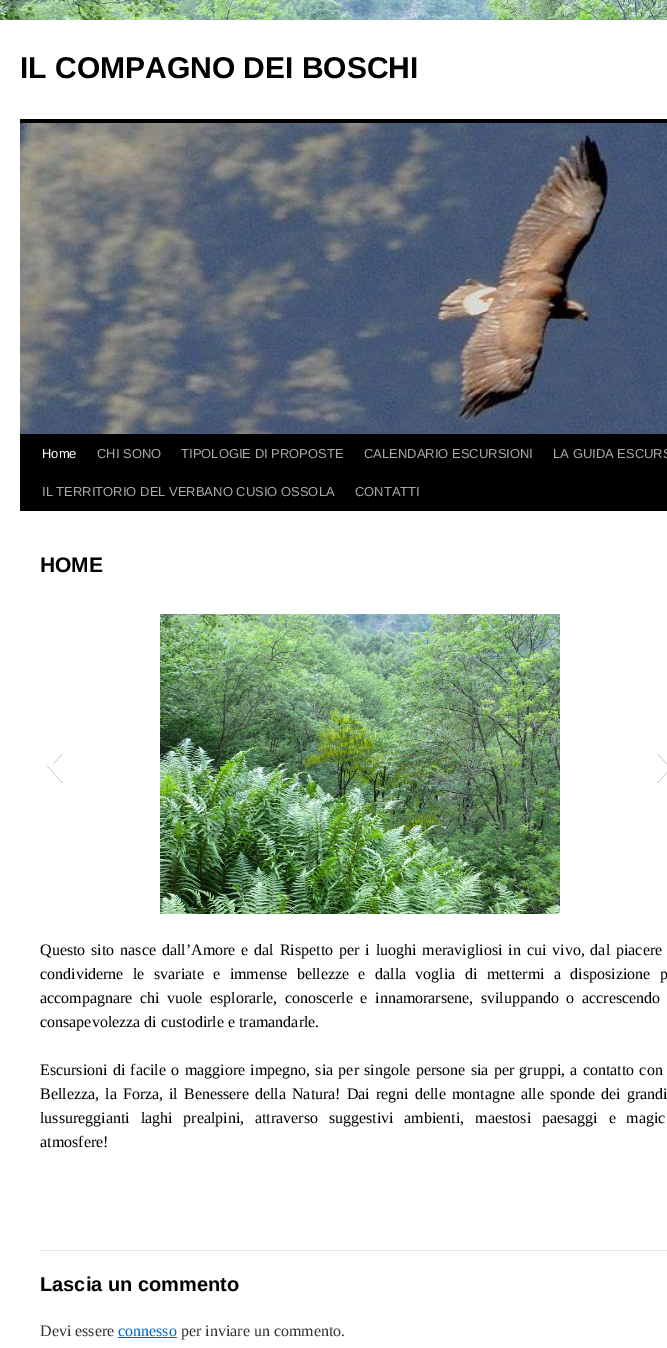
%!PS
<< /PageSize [667 1348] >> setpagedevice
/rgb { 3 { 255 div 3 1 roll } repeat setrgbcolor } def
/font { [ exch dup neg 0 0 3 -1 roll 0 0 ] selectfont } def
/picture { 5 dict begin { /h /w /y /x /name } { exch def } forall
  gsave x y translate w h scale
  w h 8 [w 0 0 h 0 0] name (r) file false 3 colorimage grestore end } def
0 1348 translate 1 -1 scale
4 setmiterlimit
255 255 255 rgb
0 0 667 1348 rectfill
(img/1.rgb) 0 0 667 20 picture
0 0 0 rgb
20 119 647 4 rectfill
20 434 647 77 rectfill
(img/2.rgb) 20 123 647 311 picture
(img/3.rgb) 47 753 16 30 picture
(img/4.rgb) 160 614 400 300 picture
(img/5.rgb) 657 753 10 30 picture
231 231 231 rgb
40 1250 627 1 rectfill
0 102 204 rgb
118 1337 59 1 rectfill
/LiberationSans-Bold 30 font
0 0 0 rgb
20 78 moveto (IL COMPAGNO DEI BOSCHI) show
/LiberationSans-Regular 13 font
255 255 255 rgb
42 458 moveto (Home) show
170 170 170 rgb
[
  [(CHI SONO) 97 458]
  [(TIPOLOGIE DI PROPOSTE) 181 458]
  [(CALENDARIO ESCURSIONI) 364 458]
  [(LA GUIDA ESCURS) 553 458]
  [(IL TERRITORIO DEL VERBANO CUSIO OSSOLA) 42 496]
  [(CONTATTI) 355 496]
] { aload pop moveto show } forall
/LiberationSans-Bold 21 font
0 0 0 rgb
40 572 moveto (HOME) show
/LiberationSerif-Regular 16 font
40 955 moveto 1.9 0 32 (Questo sito nasce dall’Amore e dal Rispetto per i luoghi meravigliosi in cui vivo, dal piacere) widthshow
40 979 moveto 5.4 0 32 (condividerne le svariate e immense bellezze e dalla voglia di mettermi a disposizione p) widthshow
40 1003 moveto 3.5 0 32 (accompagnare chi vuole esplorarle, conoscerle e innamorarsene, sviluppando o accrescendo) widthshow
40 1027 moveto (consapevolezza di custodirle e tramandarle.) show
40 1075 moveto 1.25 0 32 (Escursioni di facile o maggiore impegno, sia per singole persone sia per gruppi, a contatto con) widthshow
40 1099 moveto 2 0 32 (Bellezza, la Forza, il Benessere della Natura! Dai regni delle montagne alle sponde dei grandi) widthshow
40 1123 moveto 6.75 0 32 (lussureggianti laghi prealpini, attraverso suggestivi ambienti, maestosi paesaggi e magic) widthshow
40 1147 moveto (atmosfere!) show
/LiberationSans-Bold 20 font
40 1291 moveto (Lascia un commento) show
/LiberationSerif-Regular 16 font
51 51 51 rgb
40 1336 moveto (Devi essere) show
0 102 204 rgb
118 1336 moveto (connesso) show
51 51 51 rgb
181 1336 moveto (per inviare un commento.) show
showpage
